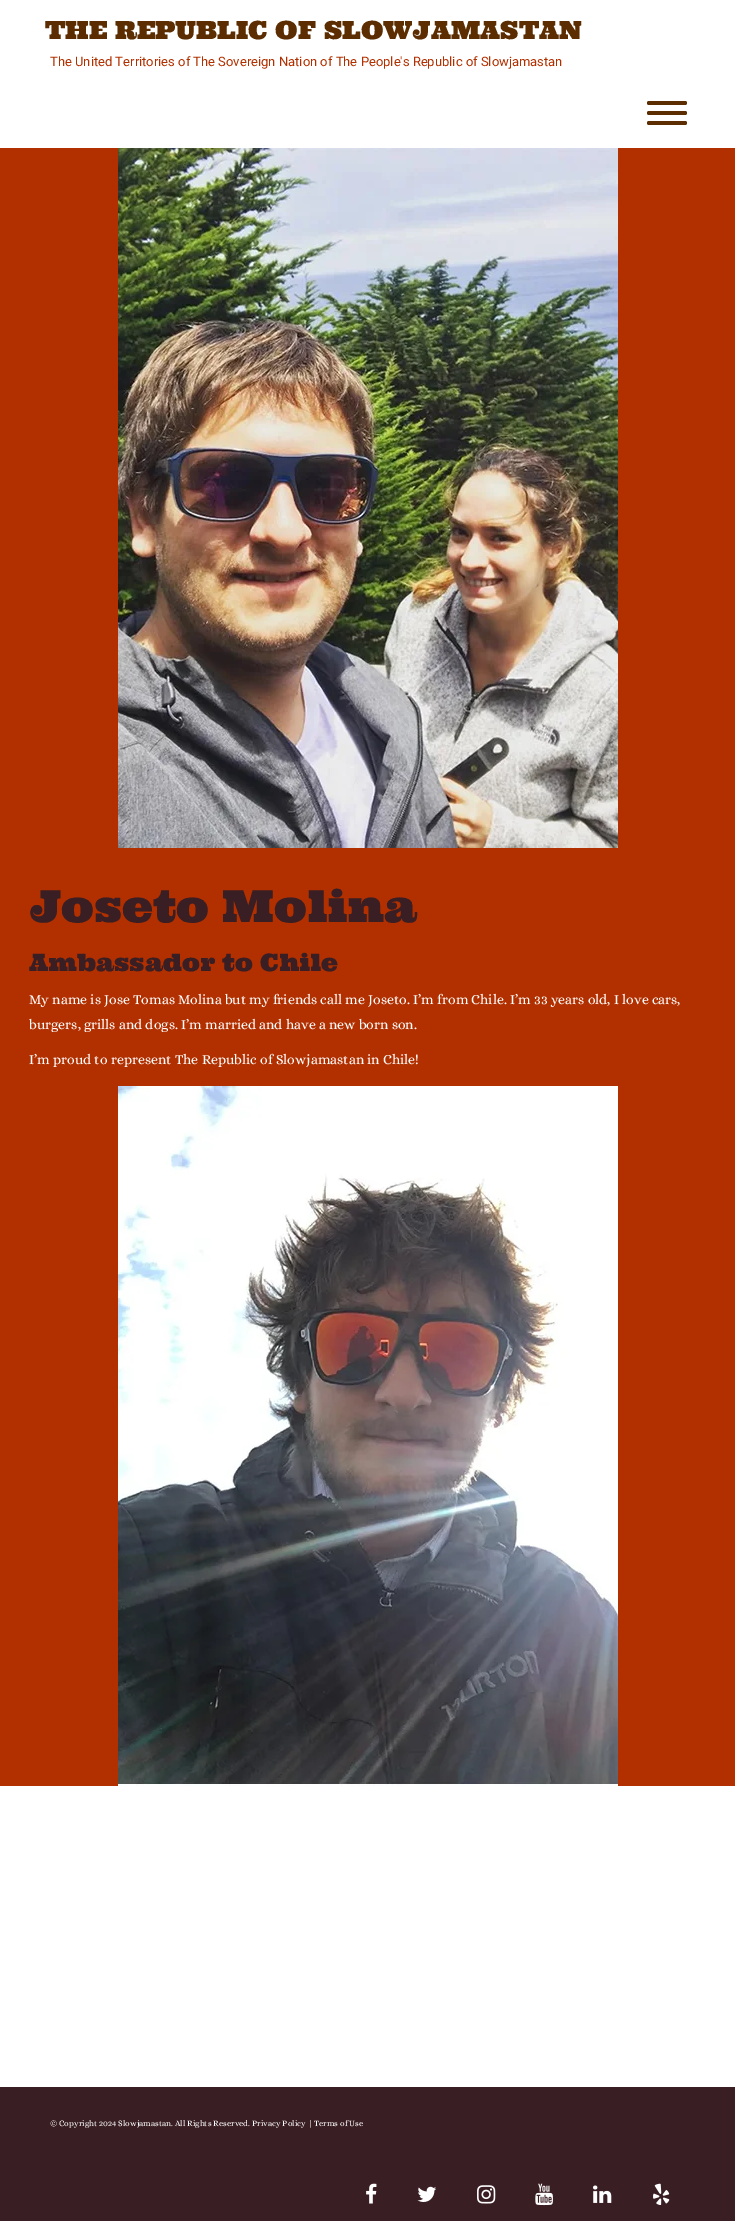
%!PS
<< /PageSize [735 2221] >> setpagedevice
/rgb { 3 { 255 div 3 1 roll } repeat setrgbcolor } def
/font { [ exch dup neg 0 0 3 -1 roll 0 0 ] selectfont } def
/roundrect { 5 dict begin { /r /h /w /y /x } { exch def } forall
  x r add y moveto x w add y 2 copy h add r arct x w add y h add x 1 index r arct
  x y h add x y r arct x y 2 copy exch w add exch r arct closepath end } def
/picture { 5 dict begin { /h /w /y /x /name } { exch def } forall
  gsave x y translate w h scale
  w h 8 [w 0 0 h 0 0] name (r) file false 3 colorimage grestore end } def
0 2221 translate 1 -1 scale
4 setmiterlimit
255 255 255 rgb
0 0 735 2221 rectfill
91 45 0 rgb
647 121 40 4 2 roundrect fill
647 101 40 4 2 roundrect fill
647 111 40 4 2 roundrect fill
178 48 0 rgb
0 148 735 1638 rectfill
(img/1.rgb) 118 148 500 700 picture
(img/2.rgb) 118 1086 500 700 picture
57 30 35 rgb
0 2087 735 134 rectfill
(img/3.rgb) 366 2183 11 21 picture
(img/4.rgb) 417 2186 20 16 picture
(img/5.rgb) 477 2185 19 19 picture
(img/6.rgb) 535 2183 18 23 picture
(img/7.rgb) 593 2185 19 18 picture
(img/8.rgb) 653 2183 17 22 picture
/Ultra-Regular 25 font
91 45 0 rgb
45 39 moveto (THE REPUBLIC OF SLOWJAMASTAN) show
/Roboto-Regular 13 font
178 48 0 rgb
50 66 moveto (The United Territories of The Sovereign Nation of The People's Republic of Slowjamastan) show
/Ultra-Regular 44 font
57 30 35 rgb
29 922 moveto (Joseto Molina) show
/Ultra-Regular 24 font
29 971 moveto (Ambassador to Chile) show
/Alice-Regular 14 font
255 255 255 rgb
[
  [(My name is Jose Tomas Molina but my friends call me Joseto. I’m from Chile. I’m 33 years old, I love cars,) 29 1004]
  [(burgers, grills and dogs. I’m married and have a new born son.) 29 1029]
  [(I’m proud to represent The Republic of Slowjamastan in Chile!) 29 1064]
] { aload pop moveto show } forall
/Alice-Regular 8.4 font
50 2126 moveto (© Copyright 2024 Slowjamastan. All Rights Reserved. Privacy Policy | Terms of Use) show
showpage
